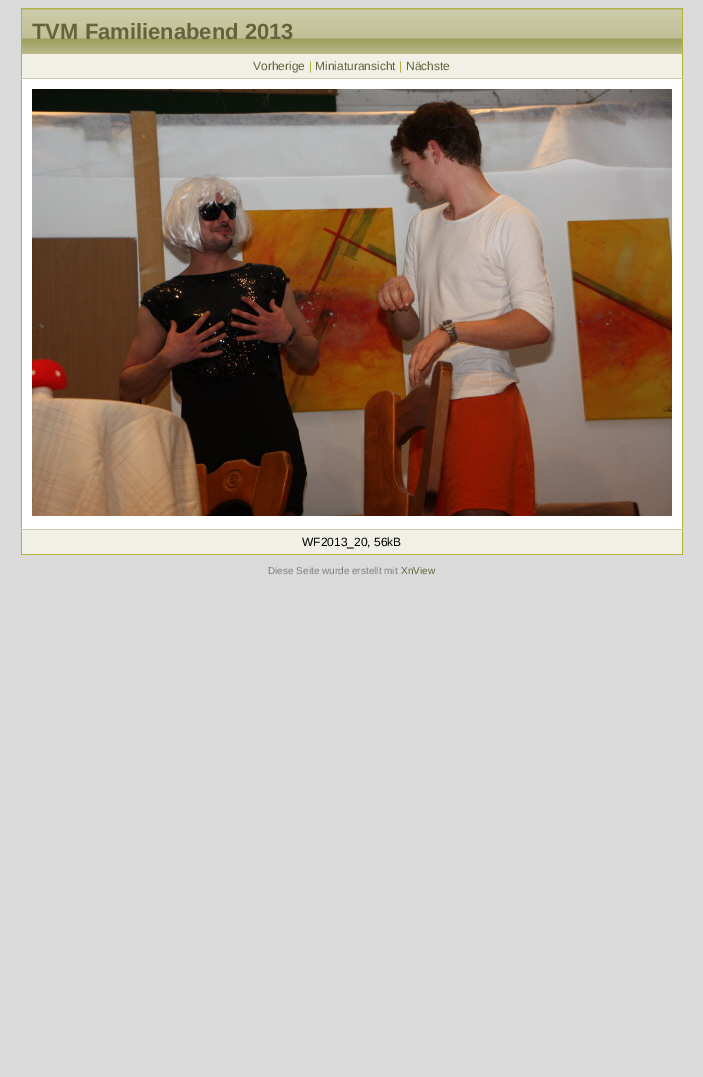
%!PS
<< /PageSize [703 1077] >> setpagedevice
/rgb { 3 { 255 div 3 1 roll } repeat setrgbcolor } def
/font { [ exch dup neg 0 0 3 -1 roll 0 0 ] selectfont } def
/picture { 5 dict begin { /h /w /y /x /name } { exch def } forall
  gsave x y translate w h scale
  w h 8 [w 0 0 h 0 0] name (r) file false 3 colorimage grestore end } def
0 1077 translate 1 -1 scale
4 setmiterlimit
218 218 218 rgb
0 0 703 1077 rectfill
[
  [22 79 660 450 255 255 255]
  [21 8 662 1 177 177 60]
  [682 8 1 547 177 177 60]
  [21 554 662 1 177 177 60]
  [21 8 1 547 177 177 60]
] { aload pop rgb rectfill } forall
(img/1.rgb) 22 9 660 45 picture
241 240 231 rgb
22 54 660 24 rectfill
203 203 169 rgb
21 78 662 1 rectfill
(img/2.rgb) 32 89 640 427 picture
241 240 231 rgb
22 530 660 24 rectfill
203 203 169 rgb
21 529 662 1 rectfill
/LiberationSans-Bold 22 font
100 100 60 rgb
32 39 moveto (TVM Familienabend 2013) show
/LiberationSans-Regular 12 font
253 70 moveto (Vorherige) show
177 177 60 rgb
309 70 moveto (|) show
100 100 60 rgb
315 70 moveto (Miniaturansicht) show
177 177 60 rgb
399 70 moveto (|) show
100 100 60 rgb
406 70 moveto (Nächste) show
0 0 0 rgb
302 546 moveto (WF2013_20, 56kB) show
/LiberationSans-Regular 10 font
128 128 128 rgb
268 574 moveto (Diese Seite wurde erstellt mit) show
100 100 60 rgb
401 574 moveto (XnView) show
showpage
